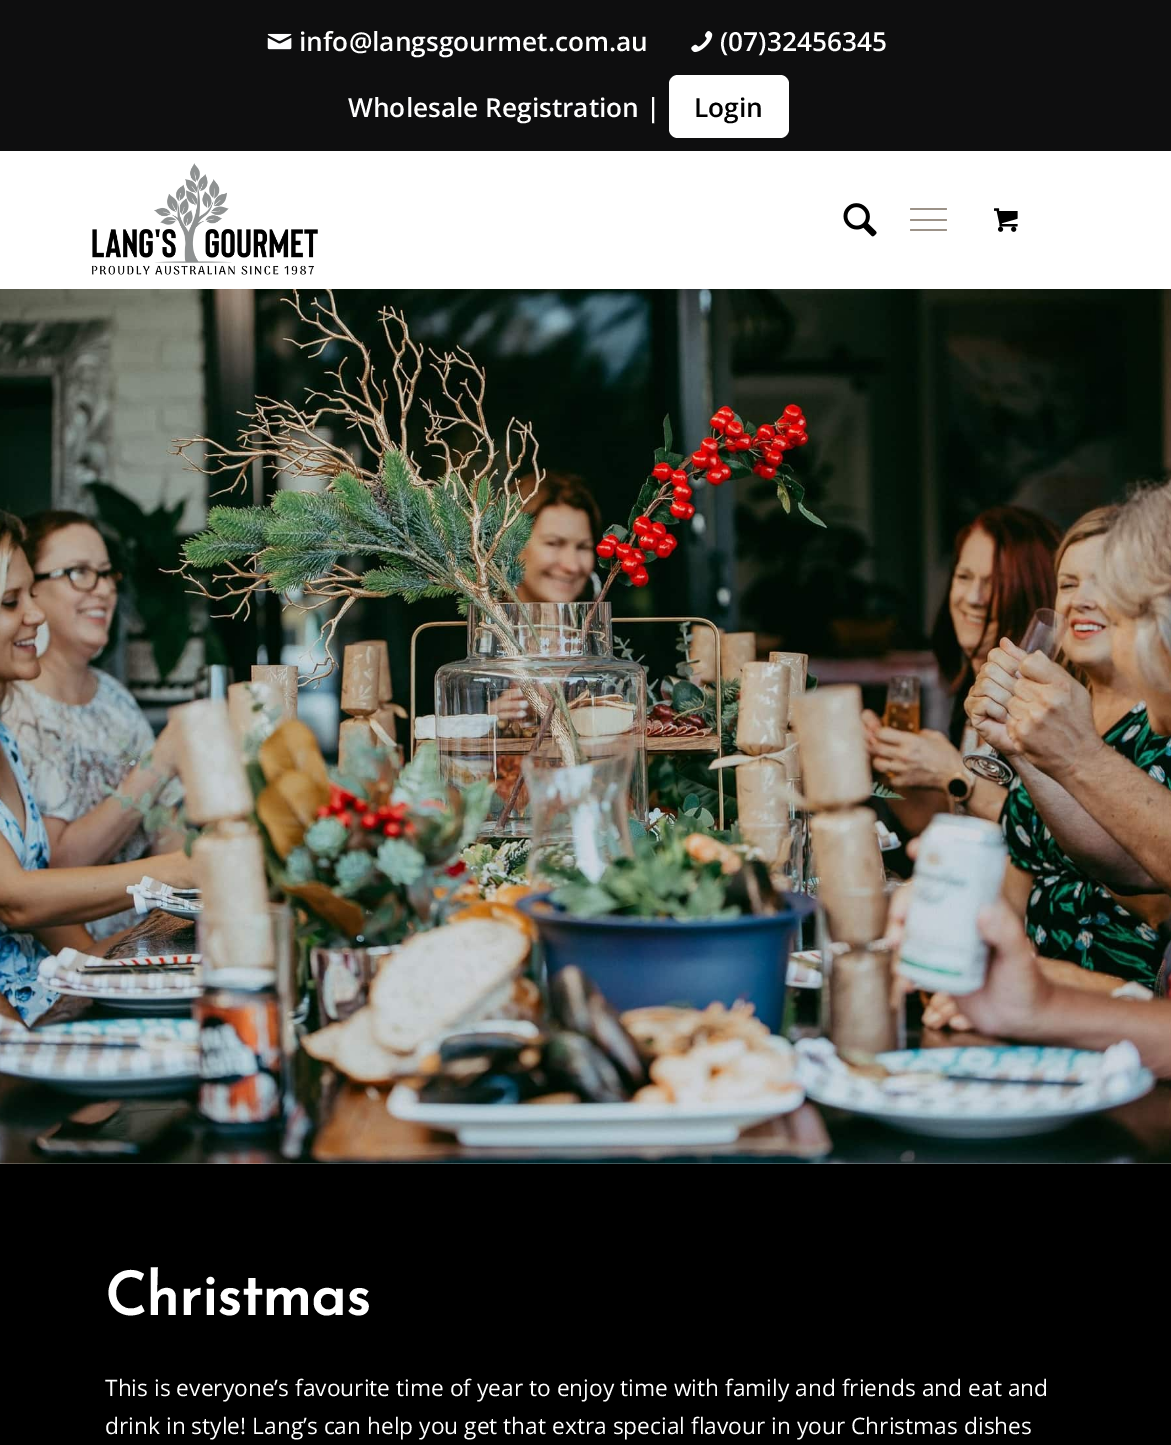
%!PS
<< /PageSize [1171 1445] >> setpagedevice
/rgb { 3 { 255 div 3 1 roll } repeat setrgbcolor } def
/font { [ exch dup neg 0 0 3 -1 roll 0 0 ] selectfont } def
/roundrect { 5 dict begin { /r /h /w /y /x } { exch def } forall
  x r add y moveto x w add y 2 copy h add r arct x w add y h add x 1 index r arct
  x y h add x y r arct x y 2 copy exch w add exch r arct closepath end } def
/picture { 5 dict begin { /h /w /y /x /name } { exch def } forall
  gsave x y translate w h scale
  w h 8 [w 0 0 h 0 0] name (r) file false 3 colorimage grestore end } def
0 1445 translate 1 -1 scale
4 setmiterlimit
255 255 255 rgb
0 0 1171 1445 rectfill
14 14 15 rgb
0 0 1171 151 rectfill
(img/1.rgb) 267 33 25 17 picture
(img/2.rgb) 691 31 22 22 picture
255 255 255 rgb
669 75 120 63 9 roundrect fill
(img/3.rgb) 91 163 227 112 picture
(img/4.rgb) 843 203 34 34 picture
156 146 136 rgb
910 219 37 2 1 roundrect fill
910 208 37 2 1 roundrect fill
910 229 37 2 1 roundrect fill
(img/5.rgb) 994 208 24 24 picture
(img/6.rgb) 0 289 1171 875 picture
0 0 0 rgb
0 1164 1171 281 rectfill
/OpenSans-SemiBold 26.25 font
255 255 255 rgb
[
  [(info@langsgourmet.com.au) 299 51]
  [(\(07\)32456345) 720 51]
  [(Wholesale Registration |) 348 117]
] { aload pop moveto show } forall
0 0 0 rgb
694 117 moveto (Login) show
/JosefinSans-Bold 59.5 font
255 255 255 rgb
105 1315 moveto (Christmas) show
/OpenSans-Regular 22.75 font
105 1396 moveto (This is everyone’s favourite time of year to enjoy time with family and friends and eat and) show
105 1434 moveto (drink in style! Lang’s can help you get that extra special flavour in your Christmas dishes) show
showpage
